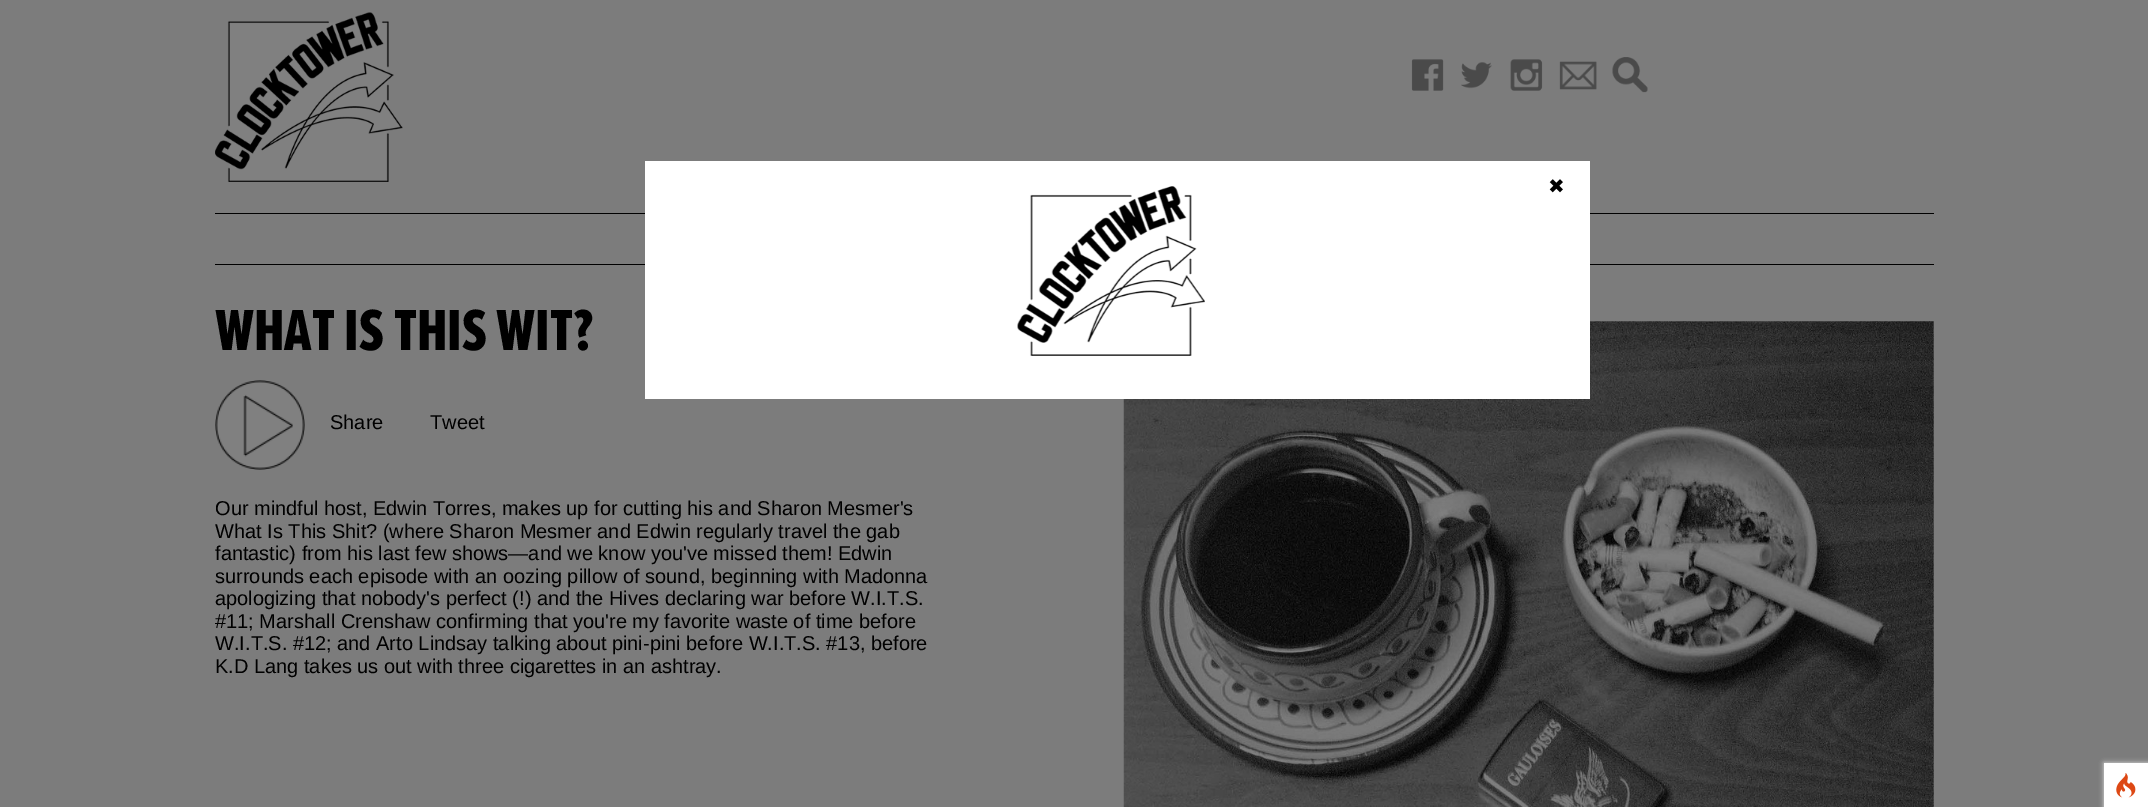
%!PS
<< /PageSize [2148 807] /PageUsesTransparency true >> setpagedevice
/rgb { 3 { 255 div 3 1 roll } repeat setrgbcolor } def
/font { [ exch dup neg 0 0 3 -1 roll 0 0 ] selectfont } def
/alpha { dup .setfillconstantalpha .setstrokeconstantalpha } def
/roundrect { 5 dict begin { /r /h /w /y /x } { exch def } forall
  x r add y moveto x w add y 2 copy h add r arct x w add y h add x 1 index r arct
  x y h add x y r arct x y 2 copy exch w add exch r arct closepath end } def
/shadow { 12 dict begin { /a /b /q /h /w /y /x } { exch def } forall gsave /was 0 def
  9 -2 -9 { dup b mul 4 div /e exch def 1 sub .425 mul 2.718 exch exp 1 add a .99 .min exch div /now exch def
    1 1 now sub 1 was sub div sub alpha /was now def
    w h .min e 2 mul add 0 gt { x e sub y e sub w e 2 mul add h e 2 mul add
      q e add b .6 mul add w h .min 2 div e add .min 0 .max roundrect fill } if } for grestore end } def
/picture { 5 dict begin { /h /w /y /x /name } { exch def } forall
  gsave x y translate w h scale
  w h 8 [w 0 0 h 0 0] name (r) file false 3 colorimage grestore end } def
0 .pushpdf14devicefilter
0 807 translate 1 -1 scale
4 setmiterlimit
124 124 124 rgb
0 0 2148 807 rectfill
(img/1.rgb) 215 12 188 170 picture
(img/2.rgb) 1411 59 33 32 picture
(img/3.rgb) 1461 62 31 27 picture
(img/4.rgb) 1510 59 33 32 picture
(img/5.rgb) 1559 61 38 29 picture
(img/6.rgb) 1612 57 36 36 picture
0 0 0 rgb
215 213 1719 1 rectfill
215 264 1719 1 rectfill
(img/9.rgb) 1123 321 811 486 picture
255 255 255 rgb
645 161 945 238 rectfill
(img/7.rgb) 1017 186 188 170 picture
(img/8.rgb) 215 380 90 90 picture
223 223 223 rgb
2104 763 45 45 0 2.5 1 shadow
255 255 255 rgb
2104 763 44 44 rectfill
(img/10.rgb) 2116 773 20 25 picture
/DejaVuSans-Regular 20 font
0 0 0 rgb
1548 193 moveto (✖) show
/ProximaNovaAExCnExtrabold-ExtraBold 60 font
215 350 moveto (WHAT IS THIS WIT?) show
/LiberationSans-Regular 20 font
[
  [(Share) 330 429]
  [(Tweet) 430 429]
  [(Our mindful host, Edwin Torres, makes up for cutting his and Sharon Mesmer's) 215 515]
  [(What Is This Shit? \(where Sharon Mesmer and Edwin regularly travel the gab) 215 538]
  [(fantastic\) from his last few shows—and we know you've missed them! Edwin) 215 560]
  [(surrounds each episode with an oozing pillow of sound, beginning with Madonna) 215 583]
  [(apologizing that nobody's perfect \(!\) and the Hives declaring war before W.I.T.S.) 215 605]
  [(#11; Marshall Crenshaw confirming that you're my favorite waste of time before) 215 628]
  [(W.I.T.S. #12; and Arto Lindsay talking about pini-pini before W.I.T.S. #13, before) 215 650]
  [(K.D Lang takes us out with three cigarettes in an ashtray.) 215 673]
] { aload pop moveto show } forall
.poppdf14devicefilter showpage
